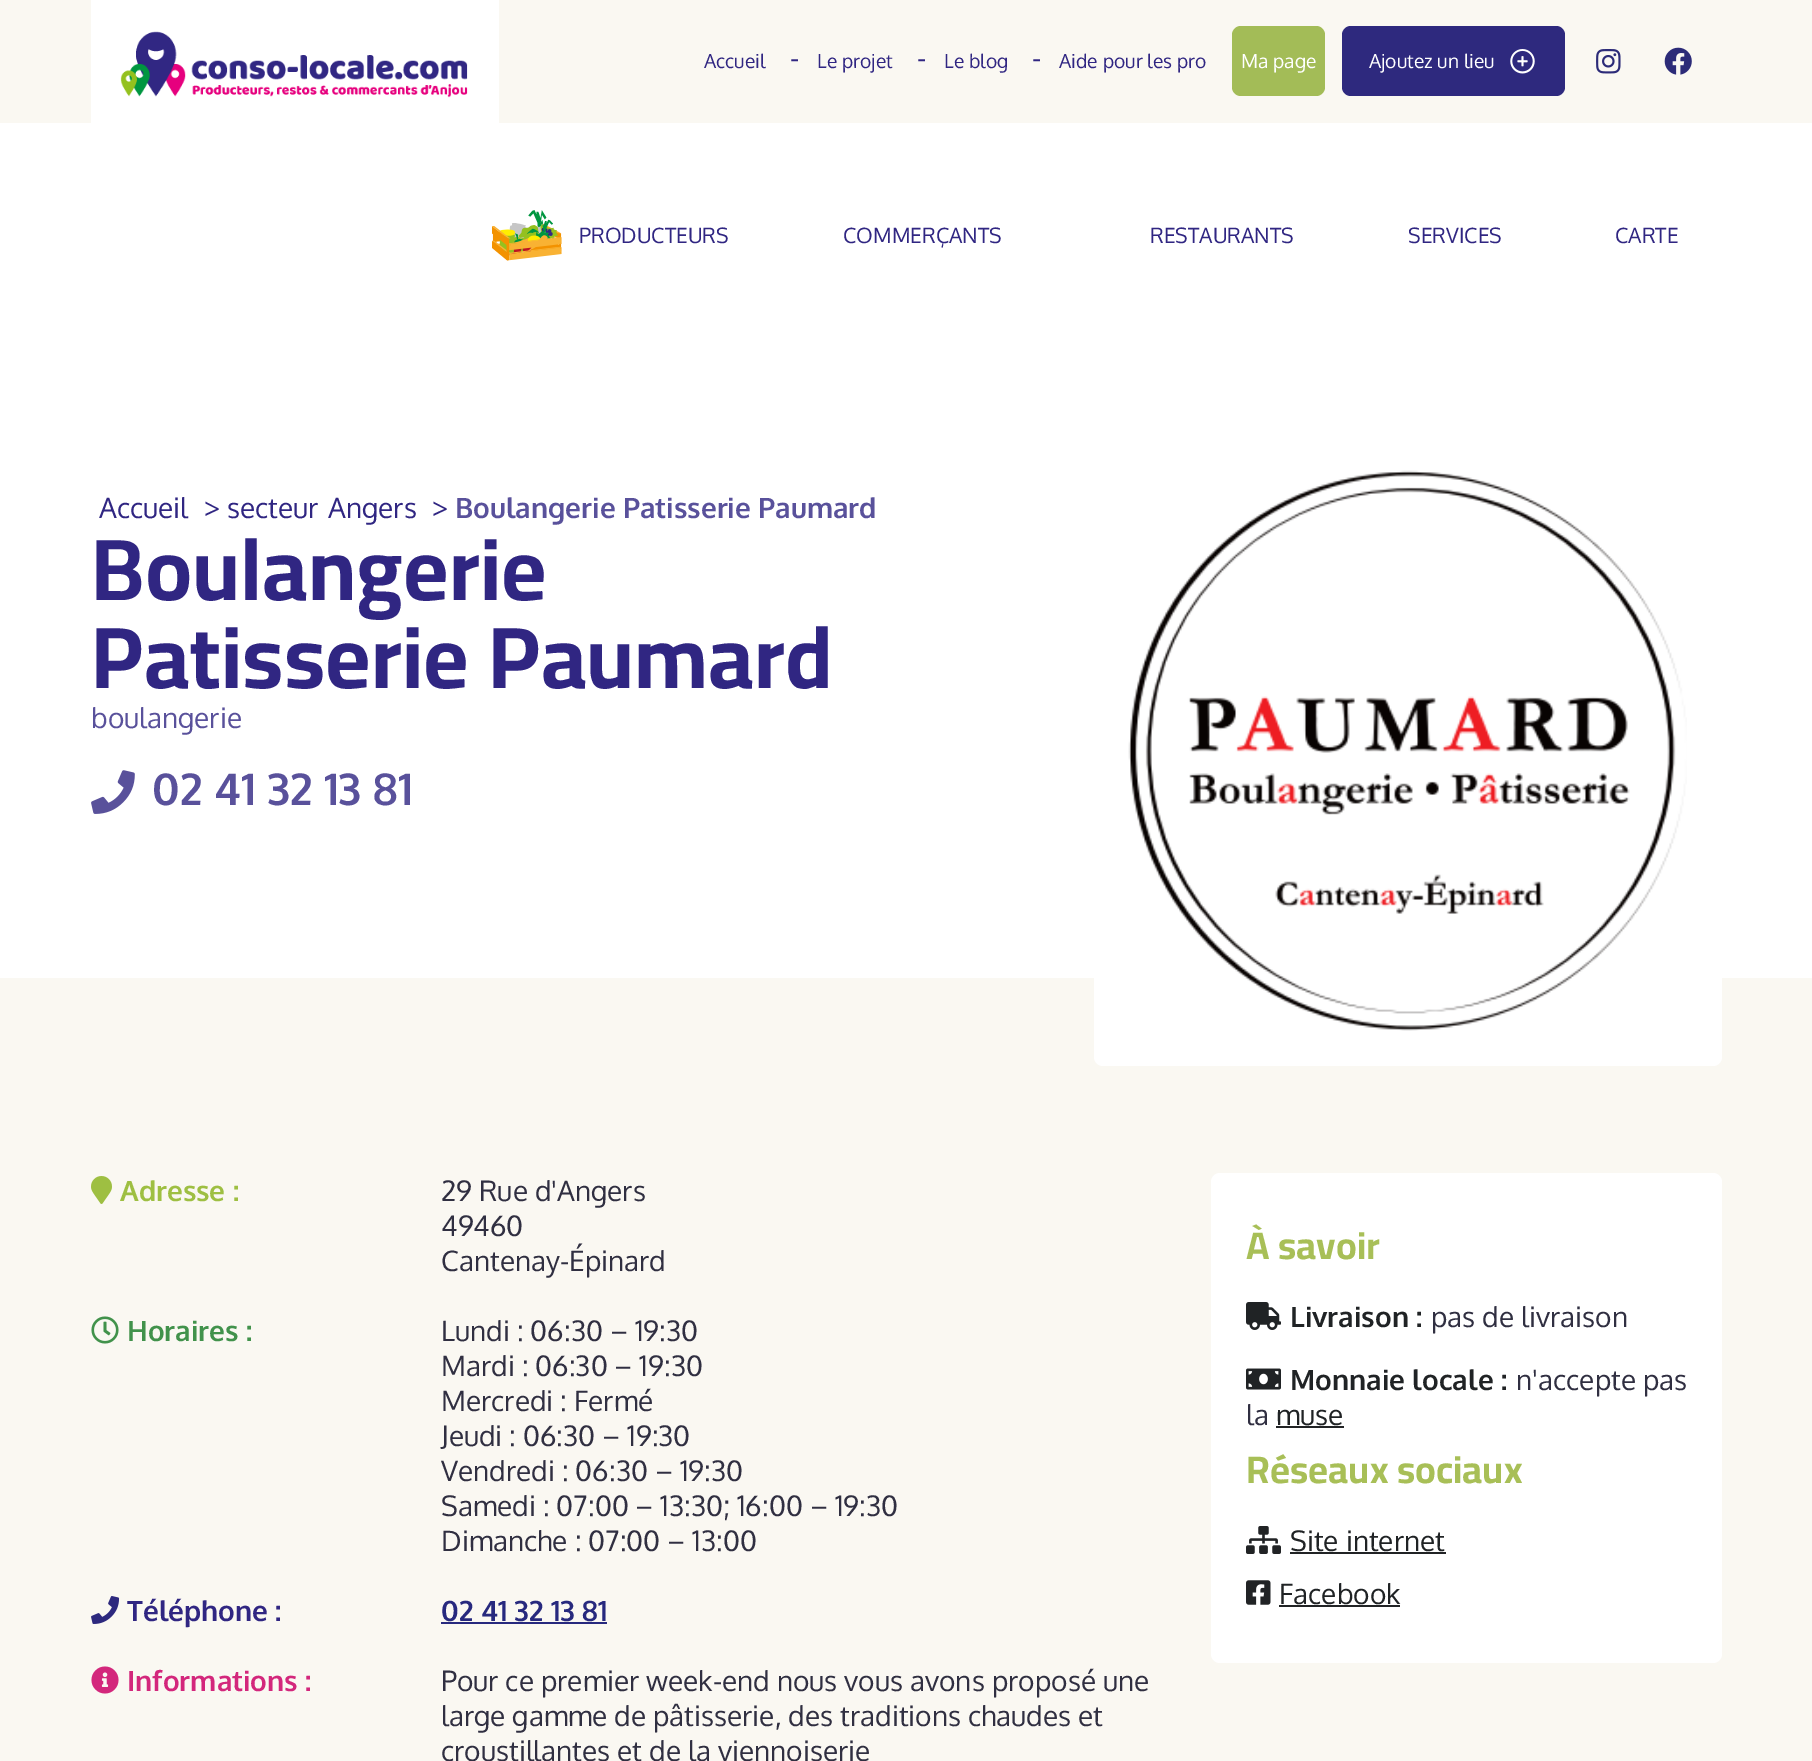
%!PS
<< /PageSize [1812 1761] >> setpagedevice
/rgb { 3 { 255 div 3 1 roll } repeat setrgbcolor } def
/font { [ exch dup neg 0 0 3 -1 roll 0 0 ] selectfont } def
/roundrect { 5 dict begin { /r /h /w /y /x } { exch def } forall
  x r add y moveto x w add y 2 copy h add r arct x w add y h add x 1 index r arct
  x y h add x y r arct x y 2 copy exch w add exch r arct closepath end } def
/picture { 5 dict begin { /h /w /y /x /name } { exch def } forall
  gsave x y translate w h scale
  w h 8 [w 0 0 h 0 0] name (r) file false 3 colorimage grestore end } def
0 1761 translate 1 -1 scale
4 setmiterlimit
255 255 255 rgb
0 0 1812 1761 rectfill
250 248 242 rgb
0 0 1812 123 rectfill
255 255 255 rgb
91 0 408 123 rectfill
(img/1.rgb) 120 31 348 67 picture
163 188 87 rgb
1232 26 93 70 9 roundrect fill
46 41 126 rgb
1342 26 223 70 9 roundrect fill
(img/2.rgb) 1510 49 25 25 picture
(img/3.rgb) 1596 49 25 25 picture
(img/4.rgb) 1664 47 28 28 picture
(img/5.rgb) 492 210 70 51 picture
(img/6.rgb) 91 770 44 44 picture
250 248 242 rgb
0 978 1812 783 rectfill
255 255 255 rgb
1094 438 628 628 9 roundrect fill
(img/7.rgb) 1128 470 559 561 picture
(img/8.rgb) 91 1176 21 28 picture
(img/9.rgb) 91 1316 28 28 picture
(img/10.rgb) 91 1596 29 28 picture
39 41 126 rgb
441 1622 166 2 rectfill
(img/11.rgb) 91 1666 28 28 picture
255 255 255 rgb
1211 1173 511 490 9 roundrect fill
(img/12.rgb) 1246 1302 35 28 picture
(img/13.rgb) 1246 1368 35 22 picture
33 35 37 rgb
1276 1426 68 2 rectfill
(img/14.rgb) 1246 1526 35 28 picture
1290 1552 156 2 rectfill
(img/15.rgb) 1246 1580 25 25 picture
1279 1605 121 2 rectfill
/Oxygen-Regular 19.25 font
48 38 130 rgb
704 68 moveto (Accueil) show
/Oxygen-Regular 28 font
790 68 moveto (-) show
/Oxygen-Regular 19.25 font
817 68 moveto (Le projet) show
/Oxygen-Regular 28 font
917 68 moveto (-) show
/Oxygen-Regular 19.25 font
944 68 moveto (Le blog) show
/Oxygen-Regular 28 font
1032 68 moveto (-) show
/Oxygen-Regular 19.25 font
1059 68 moveto (Aide pour les pro) show
255 255 255 rgb
1241 68 moveto (Ma page) show
1369 68 moveto (Ajoutez un lieu) show
/Oxygen-Regular 21 font
48 38 130 rgb
[
  [(PRODUCTEURS) 579 243]
  [(COMMERÇANTS) 843 243]
  [(RESTAURANTS) 1150 243]
  [(SERVICES) 1408 243]
  [(CARTE) 1615 243]
] { aload pop moveto show } forall
/Oxygen-Regular 28 font
[
  [(Accueil) 99 518]
  [(> secteur) 204 518]
  [(Angers) 328 518]
  [(>) 432 518]
] { aload pop moveto show } forall
/Oxygen-Bold 28 font
89 81 155 rgb
455 518 moveto (Boulangerie Patisserie Paumard) show
/Cairo-Bold 87.5 font
48 38 130 rgb
91 600 moveto (Boulangerie) show
91 688 moveto (Patisserie Paumard) show
/Oxygen-Regular 28 font
89 81 155 rgb
91 728 moveto (boulangerie) show
/Oxygen-Bold 43.75 font
152 805 moveto (02 41 32 13 81) show
/Oxygen-Bold 28 font
158 191 66 rgb
120 1201 moveto (Adresse :) show
/Oxygen-Regular 28 font
48 47 65 rgb
[
  [(29 Rue d'Angers) 441 1201]
  [(49460) 441 1236]
  [(Cantenay-Épinard) 441 1271]
] { aload pop moveto show } forall
/Oxygen-Bold 28 font
65 146 75 rgb
127 1341 moveto (Horaires :) show
/Oxygen-Regular 28 font
48 47 65 rgb
[
  [(Lundi : 06:30 – 19:30) 441 1341]
  [(Mardi : 06:30 – 19:30) 441 1376]
  [(Mercredi : Fermé) 441 1411]
  [(Jeudi : 06:30 – 19:30) 441 1446]
  [(Vendredi : 06:30 – 19:30) 441 1481]
  [(Samedi : 07:00 – 13:30; 16:00 – 19:30) 441 1516]
  [(Dimanche : 07:00 – 13:00) 441 1551]
] { aload pop moveto show } forall
/Oxygen-Bold 28 font
48 38 130 rgb
127 1621 moveto (Téléphone :) show
39 41 126 rgb
441 1621 moveto (02 41 32 13 81) show
211 39 124 rgb
127 1691 moveto (Informations :) show
/Oxygen-Regular 28 font
48 47 65 rgb
[
  [(Pour ce premier week-end nous vous avons proposé une) 441 1691]
  [(large gamme de pâtisserie, des traditions chaudes et) 441 1726]
  [(croustillantes et de la viennoiserie) 441 1761]
] { aload pop moveto show } forall
/Cairo-Bold 38.5 font
168 191 87 rgb
1246 1259 moveto (À savoir) show
/Oxygen-Bold 28 font
32 35 37 rgb
1290 1327 moveto (Livraison :) show
/Oxygen-Regular 28 font
48 47 65 rgb
1431 1327 moveto (pas de livraison) show
/Oxygen-Bold 28 font
32 35 37 rgb
1290 1390 moveto (Monnaie locale :) show
/Oxygen-Regular 28 font
48 47 65 rgb
1516 1390 moveto (n'accepte pas) show
1246 1425 moveto (la) show
32 35 37 rgb
1276 1425 moveto (muse) show
/Cairo-Bold 38.5 font
168 191 87 rgb
1246 1483 moveto (Réseaux sociaux) show
/Oxygen-Regular 28 font
32 35 37 rgb
1290 1551 moveto (Site internet) show
1279 1604 moveto (Facebook) show
showpage
